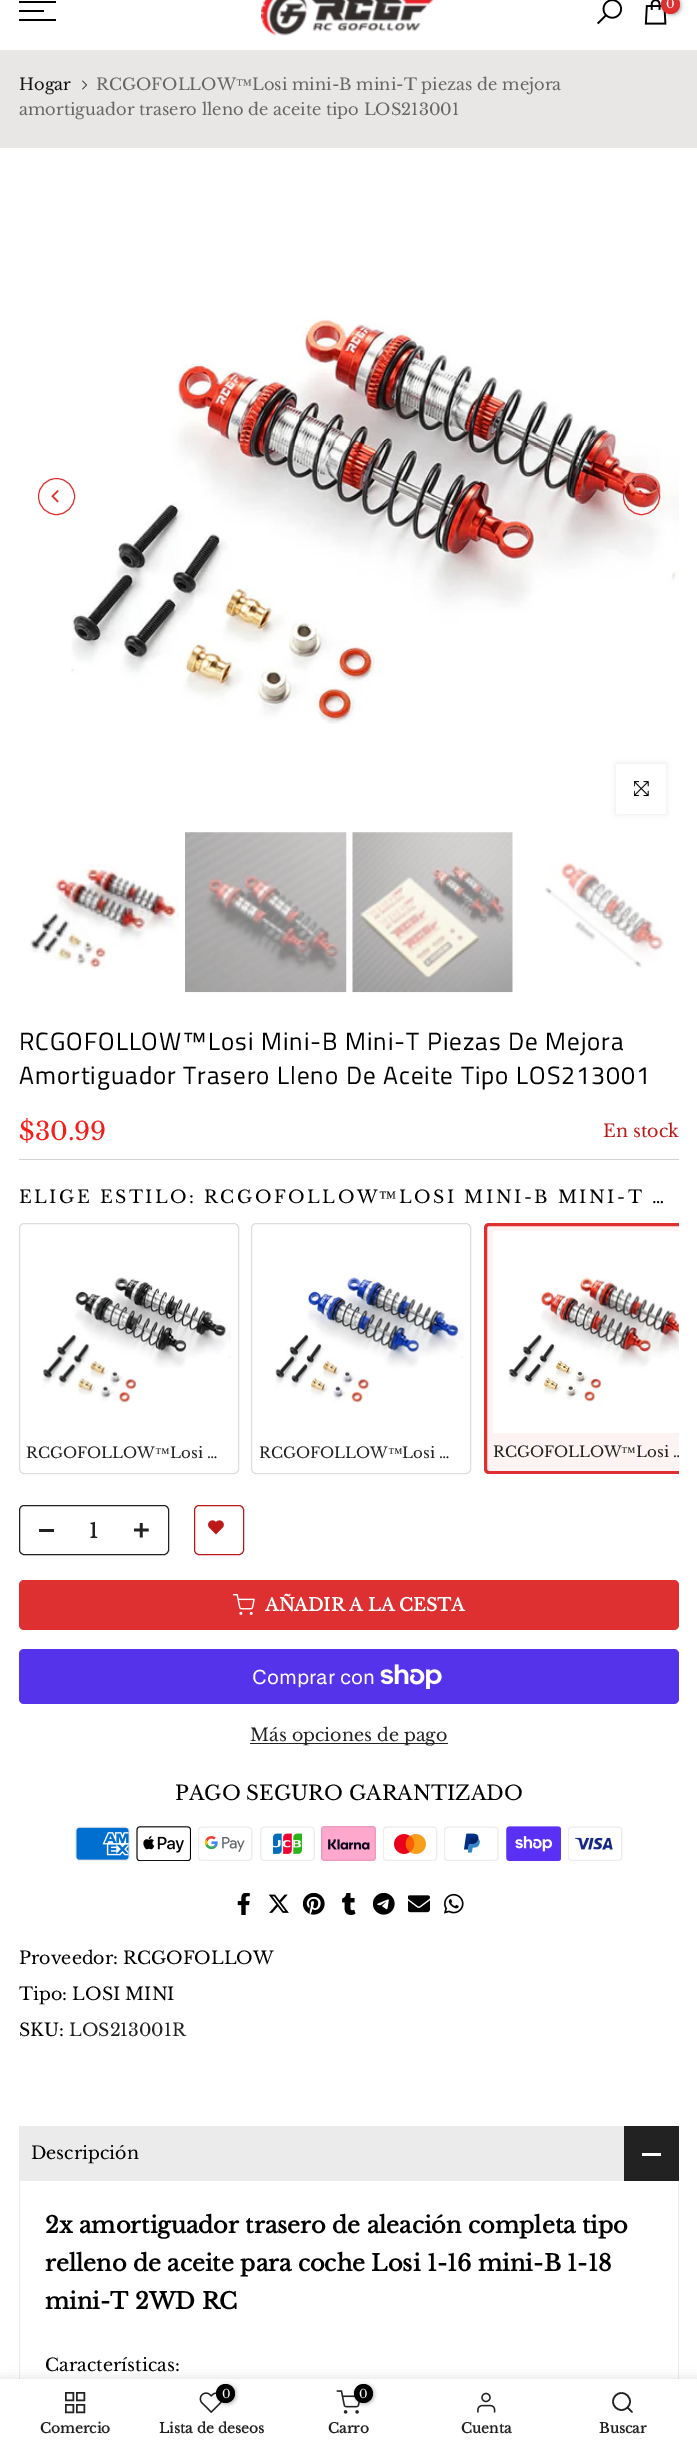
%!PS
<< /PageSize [697 2447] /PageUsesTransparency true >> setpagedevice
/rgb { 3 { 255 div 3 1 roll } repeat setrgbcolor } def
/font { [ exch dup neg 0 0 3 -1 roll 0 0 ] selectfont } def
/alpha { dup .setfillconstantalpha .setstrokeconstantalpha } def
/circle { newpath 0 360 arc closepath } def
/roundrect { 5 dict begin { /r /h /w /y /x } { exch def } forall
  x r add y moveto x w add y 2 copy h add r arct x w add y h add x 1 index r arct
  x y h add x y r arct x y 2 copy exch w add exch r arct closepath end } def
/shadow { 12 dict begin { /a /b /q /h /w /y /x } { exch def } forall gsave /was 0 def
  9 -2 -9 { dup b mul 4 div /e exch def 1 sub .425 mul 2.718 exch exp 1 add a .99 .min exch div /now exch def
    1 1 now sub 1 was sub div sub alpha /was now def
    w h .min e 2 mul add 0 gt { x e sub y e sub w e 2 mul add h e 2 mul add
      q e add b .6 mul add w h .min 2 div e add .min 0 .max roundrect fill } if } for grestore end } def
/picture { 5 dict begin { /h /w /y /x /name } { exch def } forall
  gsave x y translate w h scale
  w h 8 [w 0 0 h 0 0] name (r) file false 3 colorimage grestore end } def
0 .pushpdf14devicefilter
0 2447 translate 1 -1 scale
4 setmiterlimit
255 255 255 rgb
0 0 697 2447 rectfill
[
  [19 1 37 2 0 0 0]
  [19 10 25 2 0 0 0]
  [19 19 37 2 0 0 0]
] { aload pop rgb rectfill } forall
(img/1.rgb) 261 0 173 36 picture
(img/2.rgb) 597 0 26 25 picture
(img/3.rgb) 644 0 23 25 picture
663 -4 18 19 9 2 0.3 shadow
222 48 48 rgb
670.5 4.5 9.5 circle fill
233 230 230 rgb
0 50 697 98 rectfill
(img/4.rgb) 82 80 5 10 picture
(img/6.rgb) 71 316 608 408 picture
222 48 48 rgb
56.5 496.5 18 circle stroke
(img/5.rgb) 51 490 8 13 picture
641.5 496.5 18 circle stroke
(img/7.rgb) 638 490 8 12 picture
0 0 0 rgb
616 764 50 50 0 3 0.09 shadow
255 255 255 rgb
616 764 50 50 rectfill
(img/8.rgb) 634 781 15 16 picture
(img/9.rgb) 30 864 149 105 picture
(img/10.rgb) 185 832 162 161 picture
(img/11.rgb) 352 832 161 161 picture
(img/12.rgb) 544 862 120 106 picture
212 211 211 rgb
19 1159 660 1 rectfill
221 221 221 rgb
19.5 1223.5 219 250 4.5 roundrect stroke
(img/13.rgb) 42 1277 189 127 picture
251.5 1223.5 219 250 4.5 roundrect stroke
(img/14.rgb) 275 1277 189 126 picture
253 243 243 rgb
489 1223 moveto 679 1223 lineto 679 1474 lineto 489 1474 lineto 486 1474 484 1472 484 1469 curveto 484 1228 lineto 484 1225 486 1223 489 1223 curveto closepath fill
gsave
19 1223 660 251 rectclip
222 48 48 rgb
3 setlinewidth
485.5 1224.5 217 248 3.5 roundrect stroke
grestore
(img/15.rgb) 493 1231 186 202 picture
34 34 34 rgb
19.5 1505.5 149 49 4.5 roundrect stroke
39 1529 15 3 rectfill
(img/16.rgb) 134 1523 15 15 picture
188 24 24 rgb
194.5 1505.5 49 49 4.5 roundrect stroke
(img/17.rgb) 208 1520 16 15 picture
222 48 48 rgb
19 1580 660 50 5 roundrect fill
(img/18.rgb) 233 1594 22 21 picture
84 51 235 rgb
19 1649 660 55 5 roundrect fill
(img/19.rgb) 380 1664 62 25 picture
34 34 34 rgb
250 1743 198 1 rectfill
(img/20.rgb) 75 1826 55 35 picture
(img/21.rgb) 136 1826 55 35 picture
(img/22.rgb) 198 1826 55 35 picture
(img/23.rgb) 260 1826 55 35 picture
(img/24.rgb) 321 1826 55 35 picture
(img/25.rgb) 383 1826 55 35 picture
(img/26.rgb) 444 1826 55 35 picture
(img/27.rgb) 506 1826 55 35 picture
(img/28.rgb) 568 1826 55 35 picture
(img/29.rgb) 237 1893 13 22 picture
(img/30.rgb) 268 1894 21 19 picture
(img/31.rgb) 303 1893 22 22 picture
(img/32.rgb) 342 1893 14 22 picture
(img/33.rgb) 373 1893 22 22 picture
(img/34.rgb) 408 1895 22 18 picture
(img/35.rgb) 444 1893 20 21 picture
[
  [19 2126 605 55 235 235 235]
  [624 2126 55 55 34 34 34]
  [642 2153 19 3 255 255 255]
] { aload pop rgb rectfill } forall
235 235 235 rgb
679 2181 moveto 679 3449 lineto 678 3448 lineto 678 2181 lineto closepath fill
19 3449 moveto 19 2181 lineto 20 2181 lineto 20 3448 lineto closepath fill
0 0 0 rgb
0 2379 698 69 0 5.5 0.12 shadow
255 255 255 rgb
0 2379 697 68 rectfill
34 34 34 rgb
1.5 setlinewidth
65.75 2392.75 7.5 7.5 rectstroke
76.75 2392.75 7.5 7.5 rectstroke
65.75 2404.75 7.5 7.5 rectstroke
76.75 2404.75 7.5 7.5 rectstroke
(img/36.rgb) 199 2392 23 21 picture
0 0 0 rgb
218 2385 18 19 9 2 0.3 shadow
225.5 2393.5 9.5 circle fill
(img/37.rgb) 336 2390 24 24 picture
355 2385 19 19 9.5 2 0.3 shadow
363.5 2393.5 9.5 circle fill
(img/38.rgb) 477 2392 19 21 picture
34 34 34 rgb
1.6 setlinewidth
621.5 2401.5 8.5 circle stroke
1 setlinecap
1 setlinejoin
632 2412 moveto 627.5 2407.5 lineto stroke
/LibreBaskerville-Regular 12 font
255 255 255 rgb
666 8 moveto (0) show
/LibreBaskerville-Regular 16.25 font
17 17 17 rgb
19 90 moveto (Hogar) show
103 102 102 rgb
96 90 moveto (RCGOFOLLOW) show
/LiberationSerif-Regular 16.25 font
236 90 moveto (™) show
/LibreBaskerville-Regular 16.25 font
252 90 moveto (Losi mini-B mini-T piezas de mejora) show
19 115 moveto (amortiguador trasero lleno de aceite tipo LOS213001) show
/TitilliumWeb-Regular 25 font
0 0 0 rgb
19 1050 moveto 1 0 (RCGOFOLLOW) ashow
/LiberationSans-Regular 25 font
182 1050 moveto 1 0 (™) ashow
/TitilliumWeb-Regular 25 font
208 1050 moveto 1 0 (Losi Mini-B Mini-T Piezas De Mejora) ashow
19 1084 moveto 1 0 (Amortiguador Trasero Lleno De Aceite Tipo LOS213001) ashow
/LibreBaskerville-Regular 25 font
244 29 24 rgb
19 1140 moveto ($30.99) show
/LibreBaskerville-Regular 17.5 font
188 24 24 rgb
603 1137 moveto (En stock) show
0 0 0 rgb
19 1203 moveto 2.5 0 (ELIGE ESTILO: RCGOFOLLOW) ashow
/LiberationSerif-Regular 17.5 font
379 1203 moveto 2.5 0 (™) ashow
/LibreBaskerville-Regular 17.5 font
399 1203 moveto 2.5 0 (LOSI MINI-B MINI-T …) ashow
/LibreBaskerville-Regular 15 font
34 34 34 rgb
26 1458 moveto (RCGOFOLLOW) show
/LiberationSerif-Regular 15 font
155 1458 moveto (™) show
/LibreBaskerville-Regular 15 font
170 1458 moveto (Losi …) show
259 1458 moveto (RCGOFOLLOW) show
/LiberationSerif-Regular 15 font
388 1458 moveto (™) show
/LibreBaskerville-Regular 15 font
402 1458 moveto (Losi …) show
493 1457 moveto (RCGOFOLLOW) show
/LiberationSerif-Regular 15 font
621 1457 moveto (™) show
gsave
493 1440 186 25 rectclip
/LibreBaskerville-Regular 15 font
636 1457 moveto (Losi …) show
grestore
/LibreBaskerville-Bold 20 font
89 1538 moveto (1) show
/LibreBaskerville-Bold 17.5 font
255 255 255 rgb
265 1611 moveto (AÑADIR A LA CESTA) show
/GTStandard-Regular 20 font
252 1684 moveto (Comprar con) show
/LibreBaskerville-Regular 17.5 font
34 34 34 rgb
250 1741 moveto (Más opciones de pago) show
/LibreBaskerville-Regular 20 font
0 0 0 rgb
175 1800 moveto (PAGO SEGURO GARANTIZADO) show
/LibreBaskerville-Regular 17.5 font
[
  [(Proveedor: RCGOFOLLOW) 19 1964]
  [(Tipo: LOSI MINI) 19 2000]
  [(SKU:) 19 2036]
] { aload pop moveto show } forall
34 34 34 rgb
69 2036 moveto (LOS213001R) show
0 0 0 rgb
31 2159 moveto (Descripción) show
/LibreBaskerville-Bold 22.5 font
[
  [(2x amortiguador trasero de aleación completa tipo) 45 2233]
  [(relleno de aceite para coche Losi 1-16 mini-B 1-18) 45 2271]
  [(mini-T 2WD RC) 45 2309]
] { aload pop moveto show } forall
/LibreBaskerville-Regular 17.5 font
45 2371 moveto (Características:) show
/LibreBaskerville-Bold 13.75 font
34 34 34 rgb
40 2433 moveto (Comercio) show
/LibreBaskerville-Regular 12 font
255 255 255 rgb
222 2398 moveto (0) show
/LibreBaskerville-Bold 13.75 font
34 34 34 rgb
159 2433 moveto (Lista de deseos) show
/LibreBaskerville-Regular 12 font
255 255 255 rgb
359 2398 moveto (0) show
/LibreBaskerville-Bold 13.75 font
34 34 34 rgb
[
  [(Carro) 328 2433]
  [(Cuenta) 461 2433]
  [(Buscar) 599 2433]
] { aload pop moveto show } forall
.poppdf14devicefilter showpage
